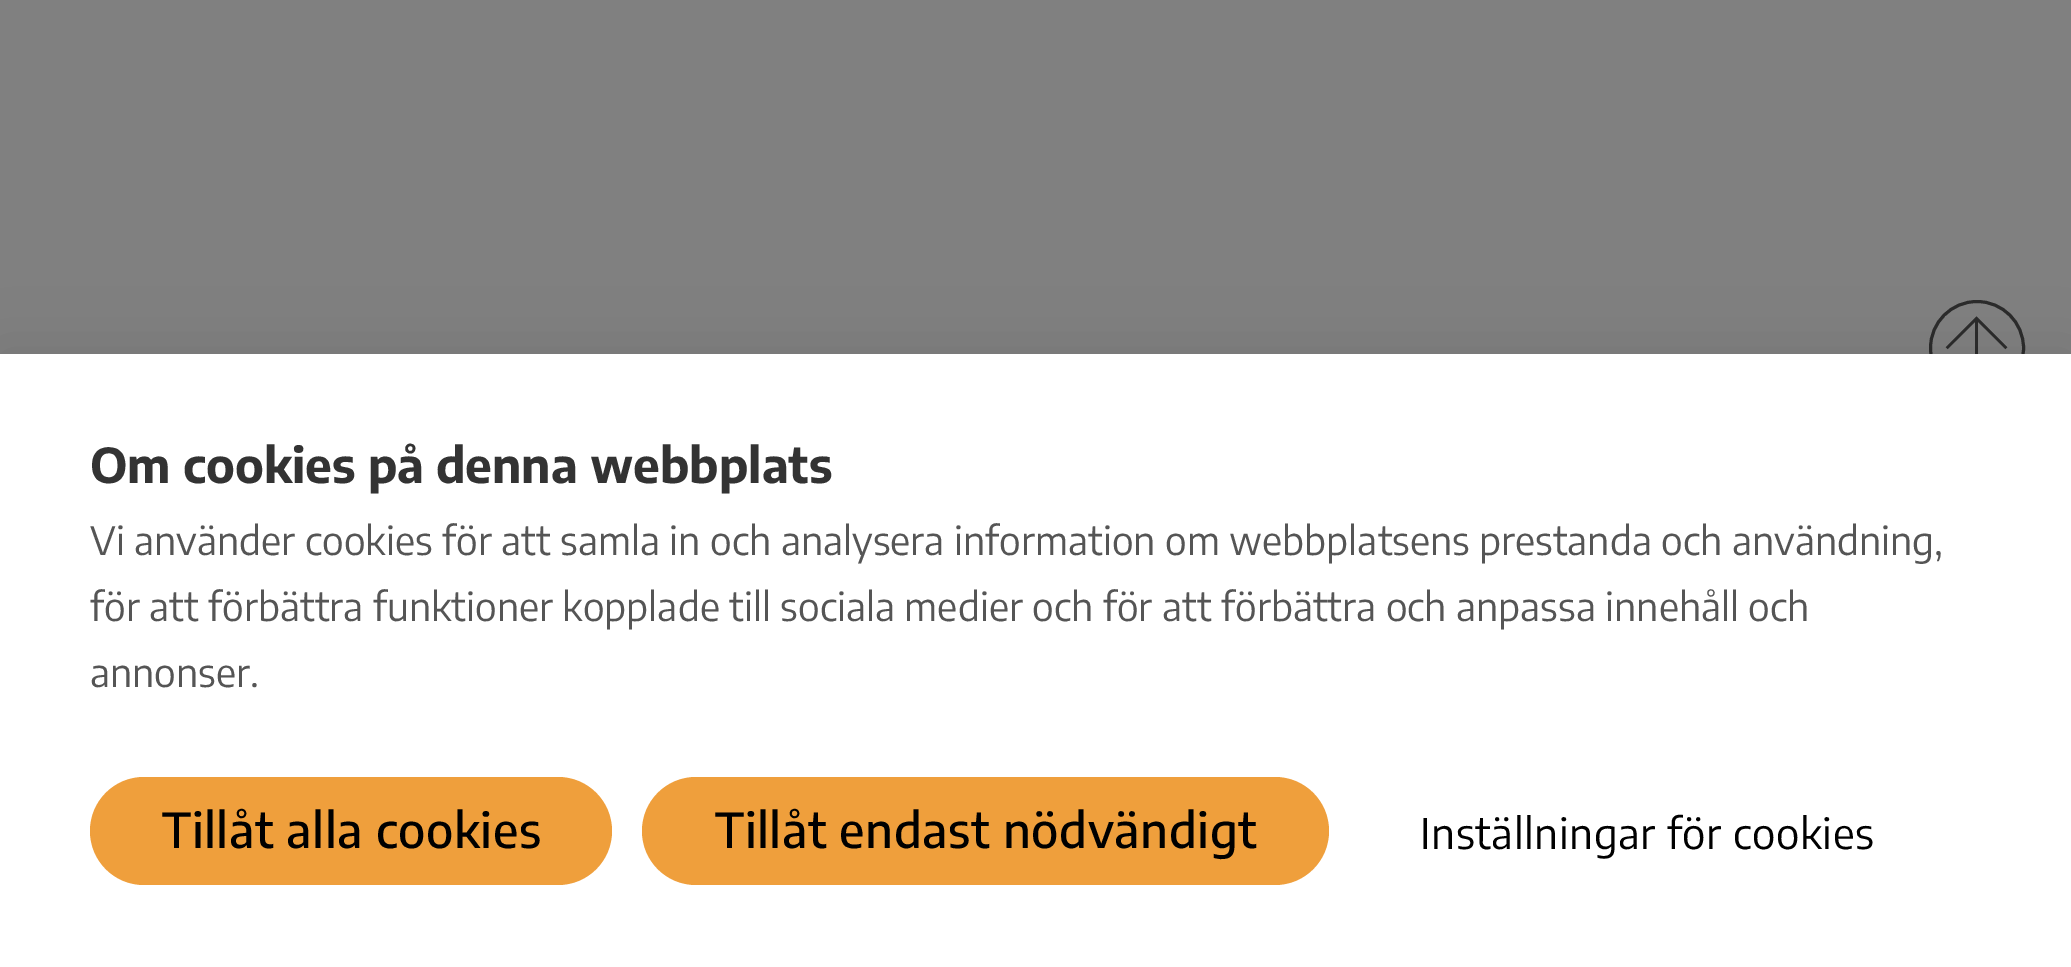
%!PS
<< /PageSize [2071 967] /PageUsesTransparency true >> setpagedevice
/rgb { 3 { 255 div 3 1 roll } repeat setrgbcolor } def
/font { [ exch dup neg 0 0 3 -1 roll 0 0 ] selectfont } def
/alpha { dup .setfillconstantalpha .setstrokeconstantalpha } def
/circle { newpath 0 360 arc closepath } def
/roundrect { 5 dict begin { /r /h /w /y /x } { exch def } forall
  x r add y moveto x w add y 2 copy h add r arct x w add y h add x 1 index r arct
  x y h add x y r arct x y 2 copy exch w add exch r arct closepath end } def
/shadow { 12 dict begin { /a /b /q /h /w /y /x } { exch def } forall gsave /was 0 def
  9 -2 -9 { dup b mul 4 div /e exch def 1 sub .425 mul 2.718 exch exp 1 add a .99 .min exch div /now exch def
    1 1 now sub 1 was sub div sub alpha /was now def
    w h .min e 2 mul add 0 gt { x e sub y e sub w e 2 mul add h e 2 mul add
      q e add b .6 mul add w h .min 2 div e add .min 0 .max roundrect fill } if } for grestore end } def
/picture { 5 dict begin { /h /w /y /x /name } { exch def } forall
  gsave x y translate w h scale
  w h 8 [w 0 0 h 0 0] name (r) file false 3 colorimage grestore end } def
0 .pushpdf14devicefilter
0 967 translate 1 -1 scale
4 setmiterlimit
128 128 128 rgb
0 0 2071 967 rectfill
43 43 43 rgb
3 setlinewidth
1977 348 46.5 circle stroke
(img/1.rgb) 1945 316 63 38 picture
0 0 0 rgb
0 354 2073 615 0 30 0.1 shadow
255 255 255 rgb
0 354 2071 613 rectfill
239 159 60 rgb
90 777 522 108 54 roundrect fill
642 777 687 108 54 roundrect fill
/EncodeSansCondensed-Bold 48 font
51 51 51 rgb
90 483 moveto (Om cookies på denna webbplats) show
/EncodeSansCondensed-Regular 39 font
85 85 85 rgb
[
  [(Vi använder cookies för att samla in och analysera information om webbplatsens prestanda och användning,) 90 555]
  [(för att förbättra funktioner kopplade till sociala medier och för att förbättra och anpassa innehåll och) 90 621]
  [(annonser.) 90 687]
] { aload pop moveto show } forall
/EncodeSansCondensed-Medium 48 font
0 0 0 rgb
162 848 moveto 0.6 0 (Tillåt alla cookies) ashow
715 848 moveto 0.6 0 (Tillåt endast nödvändigt) ashow
/EncodeSansCondensed-Regular 42 font
1420 849 moveto 0.6 0 (Inställningar för cookies) ashow
.poppdf14devicefilter showpage
